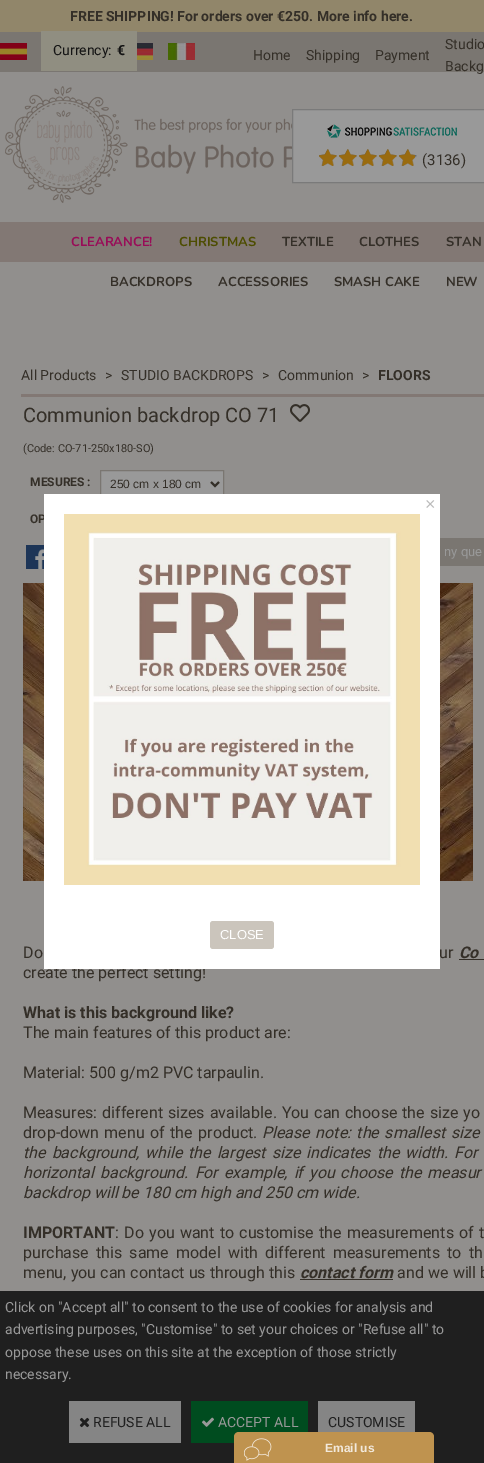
%!PS
<< /PageSize [484 1463] >> setpagedevice
/rgb { 3 { 255 div 3 1 roll } repeat setrgbcolor } def
/font { [ exch dup neg 0 0 3 -1 roll 0 0 ] selectfont } def
/roundrect { 5 dict begin { /r /h /w /y /x } { exch def } forall
  x r add y moveto x w add y 2 copy h add r arct x w add y h add x 1 index r arct
  x y h add x y r arct x y 2 copy exch w add exch r arct closepath end } def
/picture { 5 dict begin { /h /w /y /x /name } { exch def } forall
  gsave x y translate w h scale
  w h 8 [w 0 0 h 0 0] name (r) file false 3 colorimage grestore end } def
0 1463 translate 1 -1 scale
4 setmiterlimit
145 143 141 rgb
0 0 484 1463 rectfill
[
  [0 0 484 32 145 134 106]
  [0 32 484 40 122 118 113]
  [41 31 96 40 144 142 129]
  [0 222 484 40 130 120 116]
] { aload pop rgb rectfill } forall
(img/1.rgb) 0 43 27 17 picture
(img/2.rgb) 137 43 16 17 picture
(img/3.rgb) 168 43 27 17 picture
(img/4.rgb) 5 86 287 117 picture
153 153 153 rgb
292.5 109.5 moveto 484.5 109.5 lineto 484.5 182.5 lineto 292.5 182.5 lineto closepath gsave fill grestore
122 122 122 rgb
stroke
(img/5.rgb) 327 124 130 14 picture
(img/6.rgb) 319 149 98 17 picture
(img/7.rgb) 319 149 96 17 picture
130 120 116 rgb
21 394 463 3 rectfill
(img/8.rgb) 290 404 20 18 picture
153 153 153 rgb
101 471 122 23 rectfill
122 118 113 rgb
100.5 470.5 123 27 rectstroke
52 47 40 rgb
2 setlinewidth
211 482 moveto 215 486 lineto 219 482 lineto stroke
(img/9.rgb) 26 545 18 24 picture
122 118 113 rgb
440 538 44 28 rectfill
(img/10.rgb) 23 583 450 298 picture
[
  [459 959 25 1 52 47 40]
  [300 1279 93 1 52 47 40]
  [0 1291 484 172 31 31 31]
  [69 1401 112 42 133 133 133]
] { aload pop rgb rectfill } forall
(img/11.rgb) 79 1417 11 11 picture
0 76 31 rgb
191 1401 117 42 rectfill
(img/12.rgb) 202 1417 12 10 picture
133 133 133 rgb
318 1401 97 31 rectfill
191 147 79 rgb
239 1432 moveto 429 1432 lineto 432 1432 434 1434 434 1437 curveto 434 1463 lineto 234 1463 lineto 234 1437 lineto 234 1434 236 1432 239 1432 curveto closepath fill
(img/14.rgb) 244 1438 28 23 picture
/Roboto-Bold 14 font
52 47 40 rgb
70 21 moveto (FREE SHIPPING! For orders over €250. More info here.) show
/Roboto-Regular 14 font
20 20 20 rgb
53 55 moveto (Currency:) show
/Roboto-Bold 14 font
117 55 moveto (€) show
/Roboto-Regular 14 font
52 47 40 rgb
[
  [(Home) 253 60]
  [(Shipping) 306 60]
  [(Payment) 375 60]
  [(Studio) 445 49]
  [(Backg) 445 71]
] { aload pop moveto show } forall
/Roboto-Regular 15 font
422 165 moveto (\(3136\)) show
/Nunito-Bold 13 font
153 12 88 rgb
71 246 moveto (CLEARANCE!) show
77 77 0 rgb
179 246 moveto (CHRISTMAS) show
52 47 40 rgb
[
  [(TEXTILE) 282 246]
  [(CLOTHES) 359 246]
  [(STAN) 446 246]
  [(BACKDROPS) 110 286]
  [(ACCESSORIES) 218 286]
  [(SMASH CAKE) 334 286]
  [(NEW) 446 286]
] { aload pop moveto show } forall
/Roboto-Regular 14 font
[
  [(All Products) 21 380]
  [(>) 105 380]
  [(STUDIO BACKDROPS) 121 380]
  [(>) 262 380]
  [(Communion) 278 380]
  [(>) 362 380]
] { aload pop moveto show } forall
/Roboto-Bold 14 font
378 380 moveto (FLOORS) show
/Roboto-Regular 20 font
23 422 moveto (Communion backdrop CO 71) show
/Roboto-Regular 11 font
23 452 moveto (\(Code: CO-71-250x180-SO\)) show
/Roboto-Bold 12 font
30 486 moveto (MESURES :) show
/LiberationSans-Regular 12 font
110 488 moveto (250 cm x 180 cm) show
/Roboto-Bold 12 font
30 523 moveto (OP) show
/Roboto-Regular 13 font
153 153 153 rgb
444 556 moveto (ny que) show
/Roboto-Regular 16 font
52 47 40 rgb
23 958 moveto 2 0 32 (Do) widthshow
439 958 moveto 2 0 32 (ur) widthshow
/Roboto-BoldItalic 16 font
459 958 moveto 2 0 32 (Co) widthshow
/Roboto-Regular 16 font
23 978 moveto (create the perfect setting!) show
/Roboto-Bold 16 font
23 1018 moveto (What is this background like?) show
/Roboto-Regular 16 font
23 1038 moveto (The main features of this product are:) show
23 1078 moveto (Material: 500 g/m2 PVC tarpaulin.) show
23 1118 moveto 1 0 32 (Measures: different sizes available. You can choose the size yo) widthshow
23 1138 moveto 1.5 0 32 (drop-down menu of the product.) widthshow
/Roboto-Italic 16 font
262 1138 moveto 1.5 0 32 (Please note: the smallest size) widthshow
23 1158 moveto 2 0 32 (the background, while the largest size indicates the width. For) widthshow
23 1178 moveto 2 0 32 (horizontal background. For example, if you choose the measur) widthshow
23 1198 moveto (backdrop will be 180 cm high and 250 cm wide.) show
/Roboto-Bold 16 font
23 1238 moveto (IMPORTANT) show
/Roboto-Regular 16 font
115 1238 moveto 1.25 0 32 (: Do you want to customise the measurements of t) widthshow
23 1258 moveto 3.25 0 32 (purchase this same model with different measurements to th) widthshow
23 1278 moveto 0.25 0 32 (menu, you can contact us through this) widthshow
/Roboto-BoldItalic 16 font
300 1278 moveto (contact form) show
/Roboto-Regular 16 font
397 1278 moveto 0.25 0 32 (and we will b) widthshow
/Roboto-Regular 14 font
153 153 153 rgb
[
  [(Click on "Accept all" to consent to the use of cookies for analysis and) 5 1312]
  [(advertising purposes, "Customise" to set your choices or "Refuse all" to) 5 1334]
  [(oppose these uses on this site at the exception of those strictly) 5 1357]
  [(necessary.) 5 1379]
] { aload pop moveto show } forall
31 31 31 rgb
93 1427 moveto (REFUSE ALL) show
153 153 153 rgb
218 1427 moveto (ACCEPT ALL) show
31 31 31 rgb
328 1427 moveto (CUSTOMISE) show
255 255 255 rgb
44 494 396 475 rectfill
/LiberationSans-Regular 18 font
187 187 187 rgb
425 510 moveto (×) show
(img/13.rgb) 64 514 356 371 picture
203 197 188 rgb
210 921 64 28 3 roundrect fill
/LiberationSans-Regular 13 font
255 255 255 rgb
220 939 moveto (CLOSE) show
/LiberationSans-Bold 12 font
242 233 220 rgb
325 1452 moveto (Email us) show
showpage
